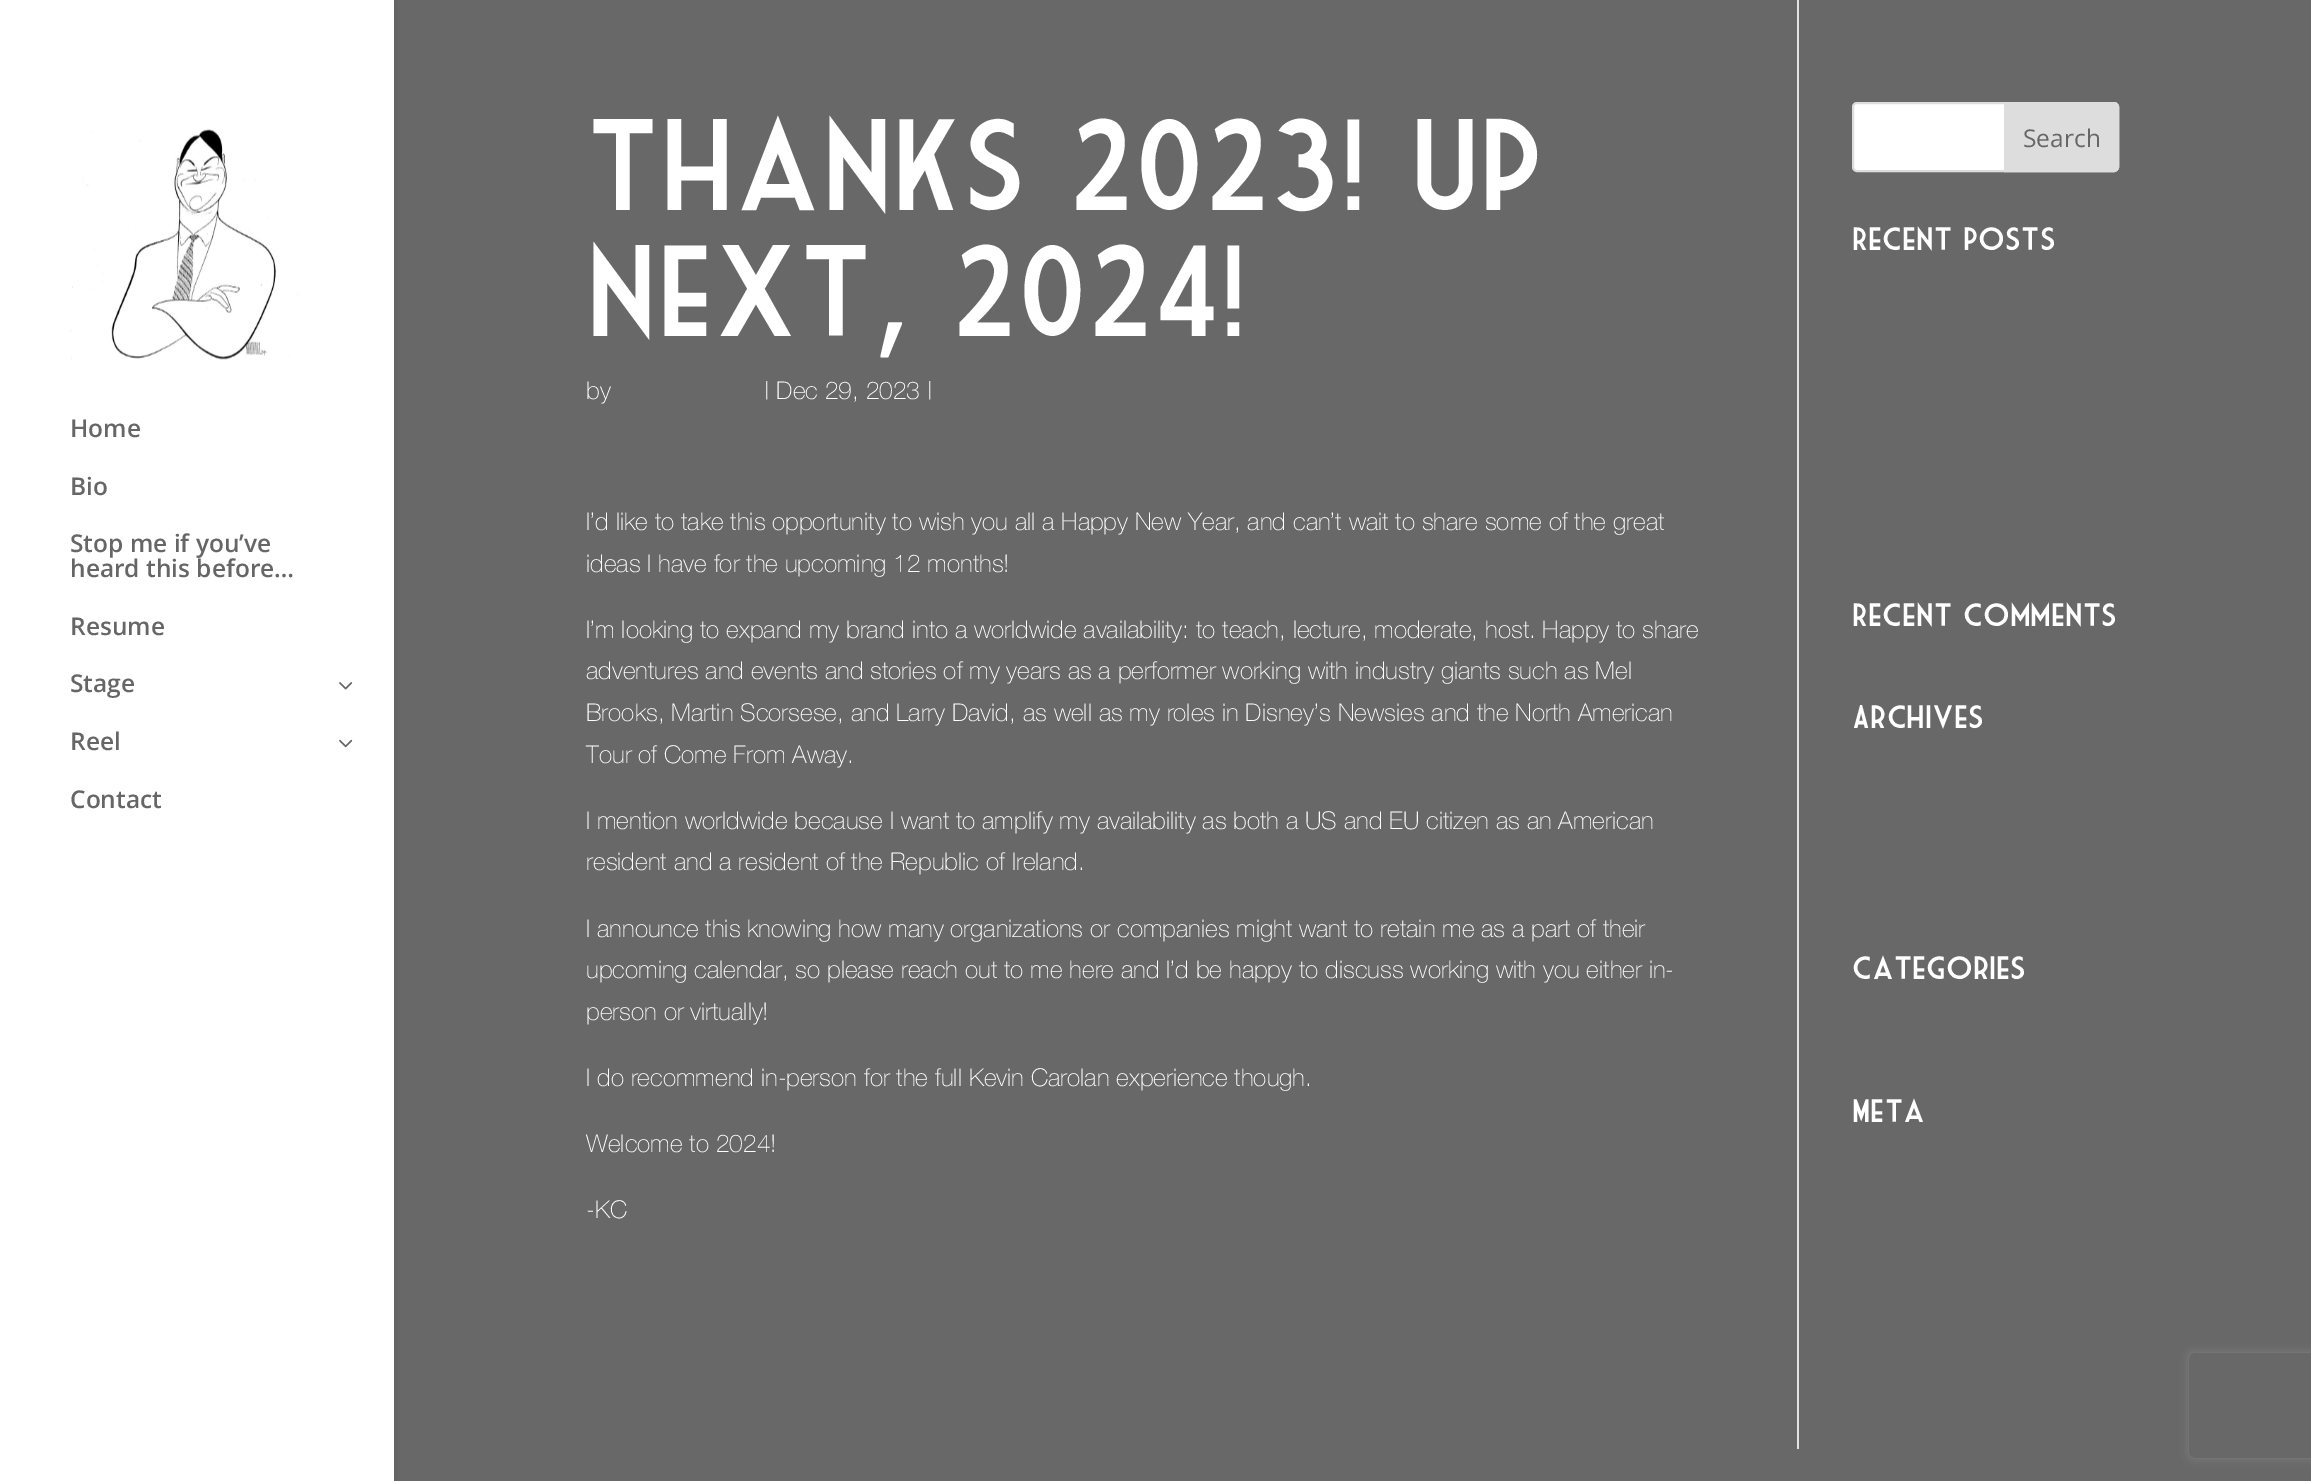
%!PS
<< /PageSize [2311 1481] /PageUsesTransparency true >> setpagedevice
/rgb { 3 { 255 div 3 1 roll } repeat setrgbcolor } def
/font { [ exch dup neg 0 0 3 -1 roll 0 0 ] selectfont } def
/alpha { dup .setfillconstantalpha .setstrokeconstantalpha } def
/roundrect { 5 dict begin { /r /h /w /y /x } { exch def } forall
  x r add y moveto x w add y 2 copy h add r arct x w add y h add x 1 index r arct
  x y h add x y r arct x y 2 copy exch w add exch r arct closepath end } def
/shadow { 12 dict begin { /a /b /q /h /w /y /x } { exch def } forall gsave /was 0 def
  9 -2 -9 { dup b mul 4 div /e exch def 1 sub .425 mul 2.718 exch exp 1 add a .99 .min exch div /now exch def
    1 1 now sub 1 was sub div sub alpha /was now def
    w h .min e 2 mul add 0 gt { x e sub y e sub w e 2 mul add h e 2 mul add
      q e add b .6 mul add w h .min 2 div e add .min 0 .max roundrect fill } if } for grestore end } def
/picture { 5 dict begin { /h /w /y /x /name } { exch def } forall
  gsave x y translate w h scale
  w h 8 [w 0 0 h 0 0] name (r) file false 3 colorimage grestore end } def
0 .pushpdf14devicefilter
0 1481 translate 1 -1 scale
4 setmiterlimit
104 104 104 rgb
0 0 2311 1481 rectfill
0 0 0 rgb
0 0 394 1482 0 6 0.1 shadow
255 255 255 rgb
0 0 394 1481 rectfill
(img/1.rgb) 70 129 229 231 picture
(img/2.rgb) 339 682 14 8 picture
(img/3.rgb) 339 739 14 9 picture
226 226 226 rgb
1797 0 2 1449 rectfill
255 255 255 rgb
1853 103 265 68 4 roundrect gsave fill grestore
221 221 221 rgb
2 setlinewidth
stroke
2005 103 moveto 2114 103 lineto 2116 103 2118 105 2118 107 curveto 2118 167 lineto 2118 169 2116 171 2114 171 curveto 2005 171 lineto closepath gsave fill grestore
stroke
gsave
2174 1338 moveto 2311 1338 lineto 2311 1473 lineto 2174 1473 lineto closepath 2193 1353 moveto 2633 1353 lineto 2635 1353 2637 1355 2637 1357 curveto 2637 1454 lineto 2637 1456 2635 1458 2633 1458 curveto 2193 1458 lineto 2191 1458 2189 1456 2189 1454 curveto 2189 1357 lineto 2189 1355 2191 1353 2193 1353 curveto closepath eoclip newpath
128 128 128 rgb
2189 1353 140 105 4 4.5 1 shadow
grestore
/OpenSans-SemiBold 24.5 font
102 102 102 rgb
[
  [(Home) 70 437]
  [(Bio) 70 495]
  [(Stop me if you’ve) 70 552]
  [(heard this before…) 70 577]
  [(Resume) 70 635]
  [(Stage) 70 692]
  [(Reel) 70 750]
  [(Contact) 70 808]
] { aload pop moveto show } forall
/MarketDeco-Regular 126 font
255 255 255 rgb
586 210 moveto (Thanks 2023! Up) show
586 336 moveto (next, 2024!) show
/HelveticaNeue-Thin 24.5 font
[
  [(by) 586 399]
  [(| Dec 29, 2023 |) 764 399]
  [(I’d like to take this opportunity to wish you all a Happy New Year, and can’t wait to share some of the great) 586 530]
  [(ideas I have for the upcoming 12 months!) 586 572]
  [(I’m looking to expand my brand into a worldwide availability: to teach, lecture, moderate, host. Happy to share) 586 638]
  [(adventures and events and stories of my years as a performer working with industry giants such as Mel) 586 679]
  [(Brooks, Martin Scorsese, and Larry David, as well as my roles in Disney’s Newsies and the North American) 586 721]
  [(Tour of Come From Away.) 586 763]
  [(I mention worldwide because I want to amplify my availability as both a US and EU citizen as an American) 586 829]
  [(resident and a resident of the Republic of Ireland.) 586 870]
  [(I announce this knowing how many organizations or companies might want to retain me as a part of their) 586 937]
  [(upcoming calendar, so please reach out to me here and I’d be happy to discuss working with you either in-) 586 978]
  [(person or virtually!) 586 1020]
  [(I do recommend in-person for the full Kevin Carolan experience though.) 586 1086]
  [(Welcome to 2024!) 586 1152]
  [(-KC) 586 1218]
] { aload pop moveto show } forall
/OpenSans-Regular 24.5 font
102 102 102 rgb
2023 147 moveto (Search) show
/MarketDeco-Regular 31.5 font
255 255 255 rgb
[
  [(Recent Posts) 1852 250]
  [(Recent Comments) 1852 626]
  [(Archives) 1852 728]
  [(Categories) 1852 979]
  [(Meta) 1852 1122]
] { aload pop moveto show } forall
.poppdf14devicefilter showpage
